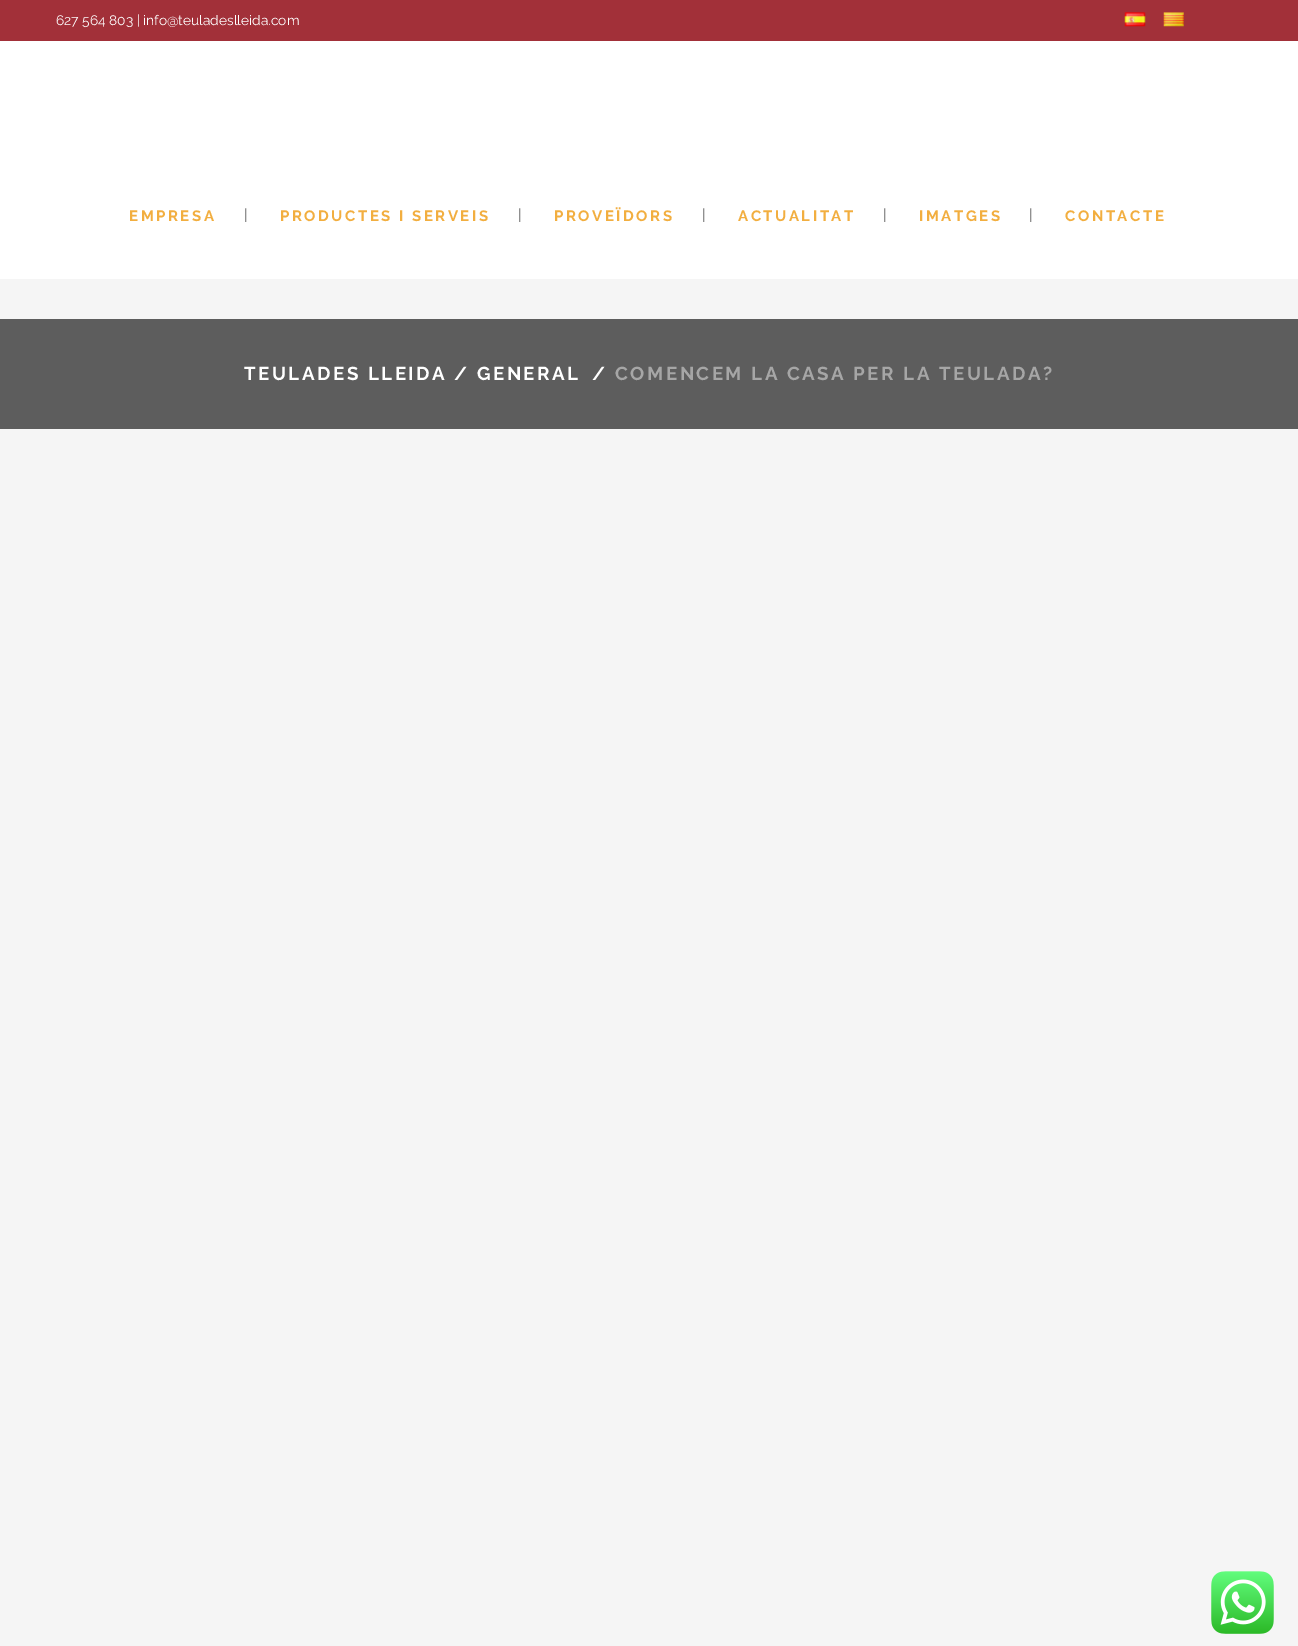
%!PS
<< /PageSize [1298 1646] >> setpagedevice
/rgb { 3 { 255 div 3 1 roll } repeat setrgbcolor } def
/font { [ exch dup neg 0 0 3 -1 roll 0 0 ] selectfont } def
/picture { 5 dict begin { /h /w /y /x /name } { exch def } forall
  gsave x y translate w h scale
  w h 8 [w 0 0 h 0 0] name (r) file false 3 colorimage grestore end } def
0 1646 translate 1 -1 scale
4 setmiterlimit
245 245 245 rgb
0 0 1298 1646 rectfill
162 48 57 rgb
0 0 1298 41 rectfill
(img/1.rgb) 1124 12 22 15 picture
(img/2.rgb) 1163 12 21 15 picture
255 255 255 rgb
0 41 1298 238 rectfill
93 93 93 rgb
0 319 1298 110 rectfill
(img/3.rgb) 1211 1571 63 63 picture
/Raleway-Regular 13.75 font
255 255 255 rgb
56 25 moveto (627 564 803 | info@teuladeslleida.com) show
/Raleway-Bold 15 font
242 174 63 rgb
129 221 moveto 2.5 0 (EMPRESA) ashow
/Raleway-Regular 15 font
105 105 105 rgb
244 220 moveto (|) show
/Raleway-Bold 15 font
242 174 63 rgb
280 221 moveto 2.5 0 (PRODUCTES I SERVEIS) ashow
/Raleway-Regular 15 font
105 105 105 rgb
518 220 moveto (|) show
/Raleway-Bold 15 font
242 174 63 rgb
554 221 moveto 2.5 0 (PROVEÏDORS) ashow
/Raleway-Regular 15 font
105 105 105 rgb
702 220 moveto (|) show
/Raleway-Bold 15 font
242 174 63 rgb
738 221 moveto 2.5 0 (ACTUALITAT) ashow
/Raleway-Regular 15 font
105 105 105 rgb
883 220 moveto (|) show
/Raleway-Bold 15 font
242 174 63 rgb
919 221 moveto 2.5 0 (IMATGES) ashow
/Raleway-Regular 15 font
105 105 105 rgb
1029 220 moveto (|) show
/Raleway-Bold 15 font
242 174 63 rgb
1065 221 moveto 2.5 0 (CONTACTE) ashow
/Raleway-Bold 18.75 font
255 255 255 rgb
244 380 moveto 2.5 0 (TEULADES LLEIDA / GENERAL) ashow
592 380 moveto 2.5 0 (/) ashow
166 166 166 rgb
615 380 moveto 2.5 0 (COMENCEM LA CASA PER LA TEULADA?) ashow
showpage
